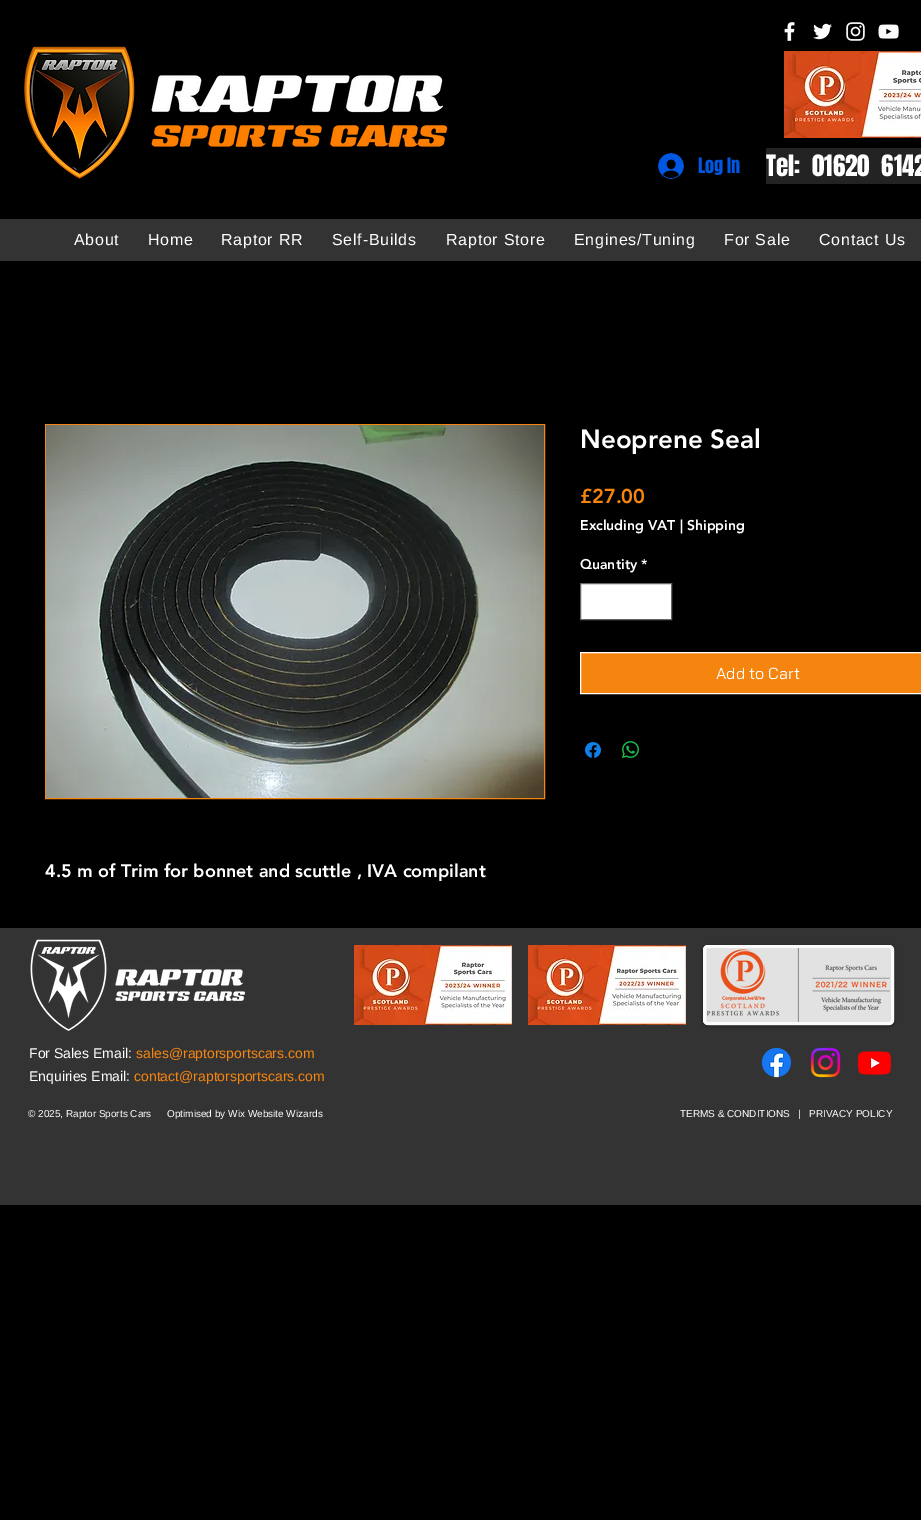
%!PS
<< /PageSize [921 1520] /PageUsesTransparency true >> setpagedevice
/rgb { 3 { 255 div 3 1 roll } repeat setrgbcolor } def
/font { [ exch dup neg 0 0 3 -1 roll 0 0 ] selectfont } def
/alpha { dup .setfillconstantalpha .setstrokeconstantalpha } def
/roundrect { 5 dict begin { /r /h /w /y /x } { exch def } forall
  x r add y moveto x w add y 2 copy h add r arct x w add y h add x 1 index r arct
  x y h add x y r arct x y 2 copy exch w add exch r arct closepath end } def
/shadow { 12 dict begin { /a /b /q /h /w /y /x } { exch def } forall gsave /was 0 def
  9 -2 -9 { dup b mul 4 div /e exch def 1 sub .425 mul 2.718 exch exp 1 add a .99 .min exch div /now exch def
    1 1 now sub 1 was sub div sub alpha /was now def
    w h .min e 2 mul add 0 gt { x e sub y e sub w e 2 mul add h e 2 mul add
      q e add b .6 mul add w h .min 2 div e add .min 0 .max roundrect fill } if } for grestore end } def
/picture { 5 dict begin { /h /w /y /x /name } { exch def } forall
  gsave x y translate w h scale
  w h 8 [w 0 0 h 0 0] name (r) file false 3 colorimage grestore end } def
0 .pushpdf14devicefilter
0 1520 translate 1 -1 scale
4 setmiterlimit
0 0 0 rgb
0 0 921 1520 rectfill
(img/1.rgb) 784 22 11 19 picture
(img/2.rgb) 813 23 19 17 picture
(img/3.rgb) 846 22 19 19 picture
(img/4.rgb) 878 24 21 15 picture
(img/5.rgb) 24 46 111 133 picture
(img/6.rgb) 151 75 297 72 picture
(img/7.rgb) 784 51 137 87 picture
(img/8.rgb) 658 153 26 26 picture
36 35 35 rgb
766 148 155 36 rectfill
51 51 51 rgb
0 219 921 42 rectfill
255 255 255 rgb
580.5 583.5 moveto 671.5 583.5 lineto 671.5 619.5 lineto 580.5 619.5 lineto closepath gsave fill grestore
102 102 102 rgb
stroke
246 133 16 rgb
580.5 652.5 moveto 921.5 652.5 lineto 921.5 693.5 lineto 580.5 693.5 lineto closepath gsave fill grestore
255 255 255 rgb
stroke
(img/9.rgb) 585 742 16 16 picture
(img/10.rgb) 622 741 17 17 picture
246 133 16 rgb
45.5 424.5 499 374 rectstroke
(img/11.rgb) 46 425 498 373 picture
51 51 51 rgb
0 928 921 277 rectfill
(img/12.rgb) 30 939 216 92 picture
(img/13.rgb) 354 945 158 80 picture
(img/14.rgb) 528 945 158 80 picture
gsave
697 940 moveto 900 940 lineto 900 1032 lineto 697 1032 lineto closepath 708 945 moveto 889 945 lineto 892 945 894 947 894 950 curveto 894 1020 lineto 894 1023 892 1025 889 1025 curveto 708 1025 lineto 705 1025 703 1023 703 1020 curveto 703 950 lineto 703 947 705 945 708 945 curveto closepath eoclip newpath
0 0 0 rgb
703 946 191 80 5 1.5 0.5 shadow
grestore
0.86 alpha
255 255 255 rgb
703 945 191 80 5 roundrect fill
3 setlinewidth
704.5 946.5 188 77 3.5 roundrect stroke
1 alpha
(img/15.rgb) 707 948 183 74 picture
(img/16.rgb) 761 1047 31 31 picture
(img/17.rgb) 810 1047 31 31 picture
(img/18.rgb) 857 1051 35 24 picture
/Anton-Regular 18 font
0 87 225 rgb
698 173 moveto (Log In) show
/Anton-Regular 25 font
255 255 255 rgb
766 176 moveto (Tel:  01620  6142) show
/LiberationSans-Regular 16 font
74 245 moveto 0.75 0 (About) ashow
148 245 moveto 0.75 0 (Home) ashow
221 245 moveto 0.75 0 (Raptor RR) ashow
332 245 moveto 0.75 0 (Self-Builds) ashow
446 245 moveto 0.75 0 (Raptor Store) ashow
574 245 moveto 0.75 0 (Engines/Tuning) ashow
724 245 moveto 0.75 0 (For Sale) ashow
819 245 moveto 0.75 0 (Contact Us) ashow
/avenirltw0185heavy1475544-Black 26 font
580 448 moveto (Neoprene Seal) show
/avenirltw0185heavy1475544-Black 20 font
246 133 16 rgb
580 503 moveto (£27.00) show
/avenirltw0185heavy1475544-Black 14 font
255 255 255 rgb
580 530 moveto (Excluding VAT | Shipping) show
580 569 moveto (Quantity *) show
/BaiJamjuree-Regular 16 font
716 679 moveto (Add to Cart) show
/avenirltw0185heavy1475544-Black 18 font
45 877 moveto (4.5 m of Trim for bonnet and scuttle , IVA compilant) show
/LiberationSans-Regular 14 font
29 1058 moveto (For Sales Email:) show
246 133 16 rgb
136 1058 moveto (sales@raptorsportscars.com) show
255 255 255 rgb
29 1081 moveto (Enquiries Email:) show
246 133 16 rgb
134 1081 moveto (contact@raptorsportscars.com) show
/LiberationSans-Regular 10 font
255 255 255 rgb
[
  [(© 2025, Raptor Sports Cars) 28 1117]
  [(Optimised by Wix Website Wizards) 167 1117]
  [(TERMS & CONDITIONS) 680 1117]
  [(|) 798 1117]
  [(PRIVACY POLICY) 809 1117]
] { aload pop moveto show } forall
.poppdf14devicefilter showpage
